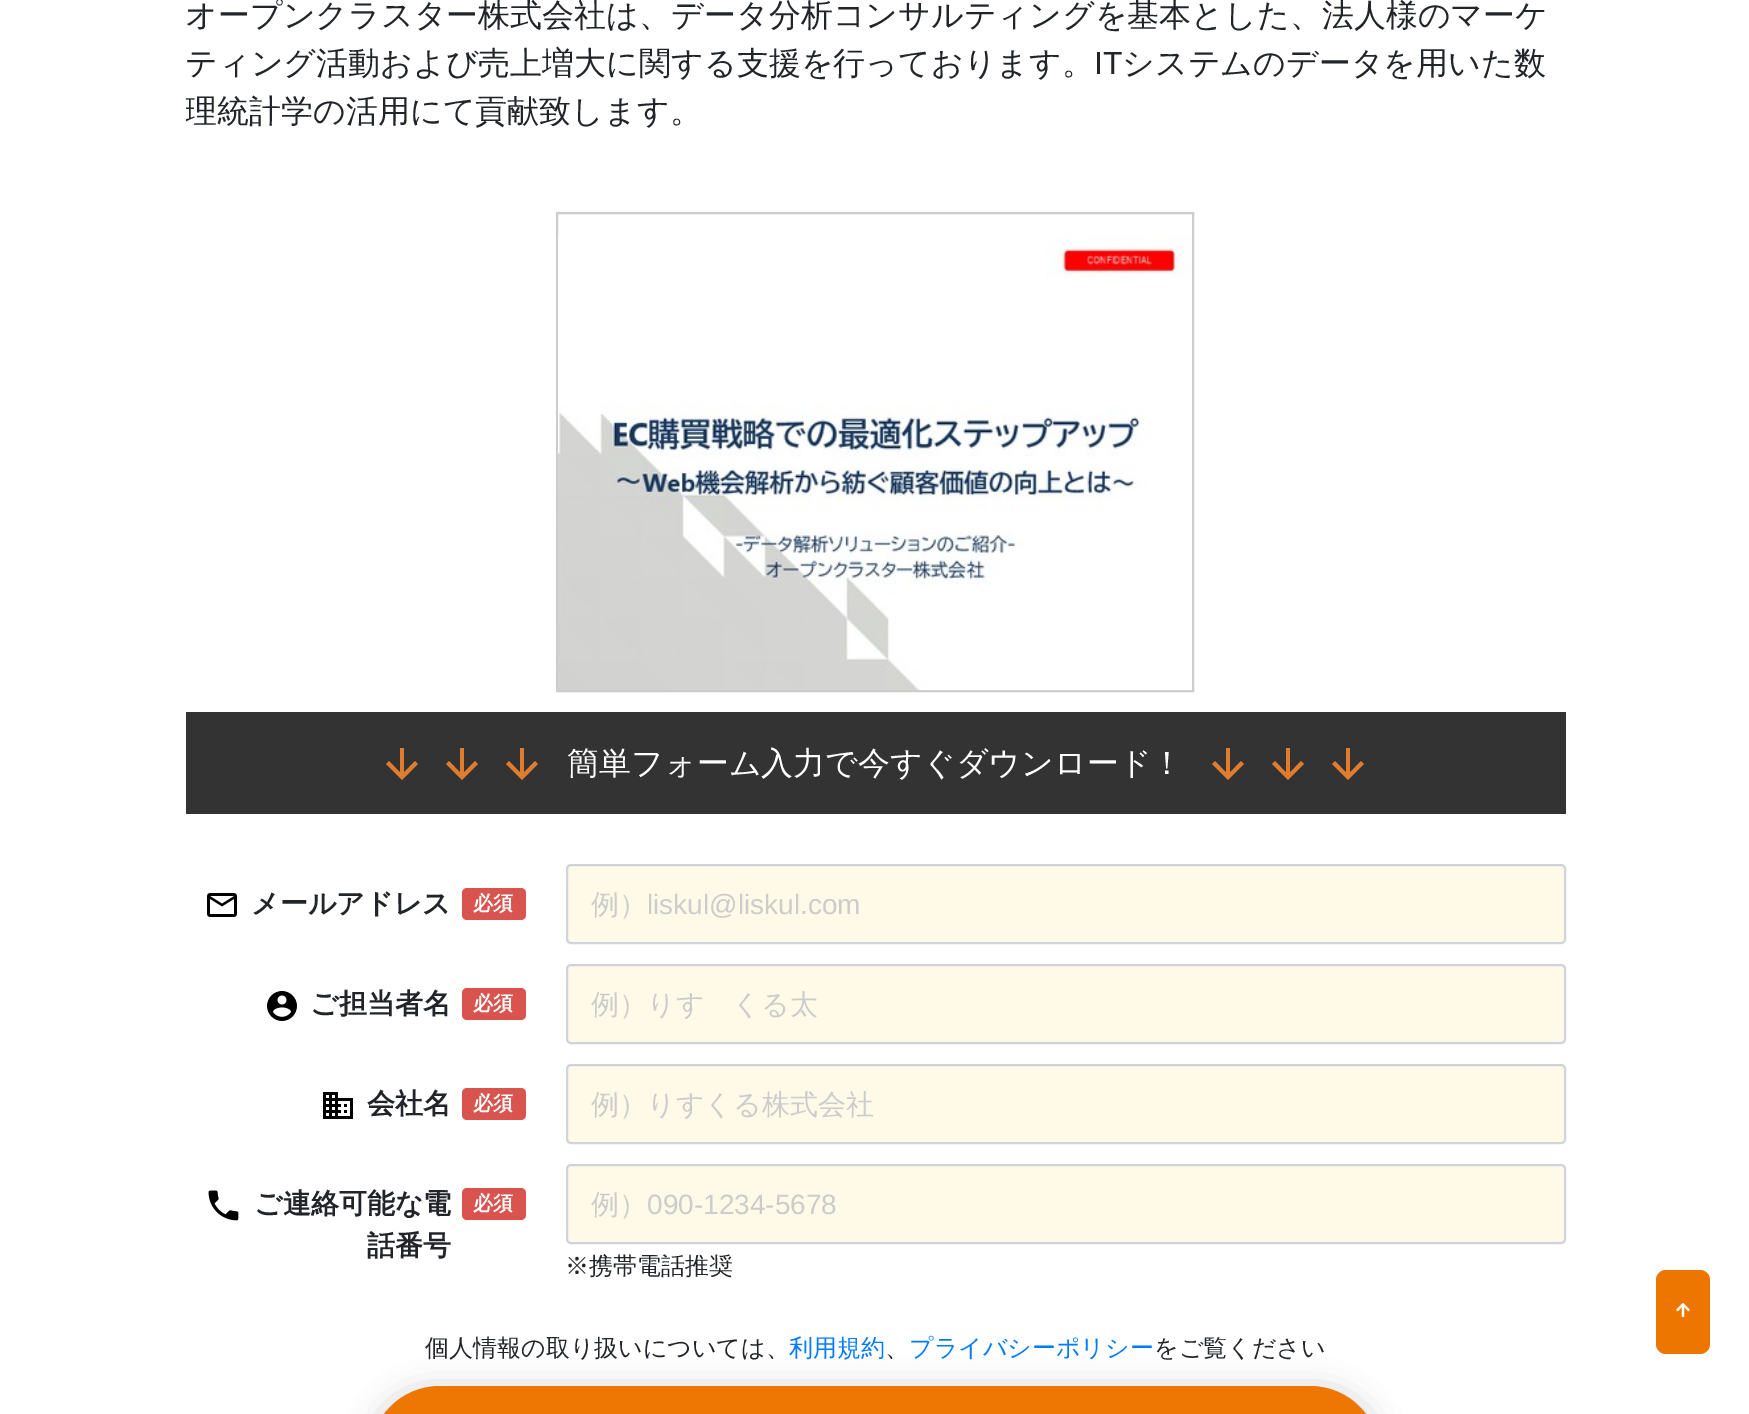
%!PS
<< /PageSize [1749 1414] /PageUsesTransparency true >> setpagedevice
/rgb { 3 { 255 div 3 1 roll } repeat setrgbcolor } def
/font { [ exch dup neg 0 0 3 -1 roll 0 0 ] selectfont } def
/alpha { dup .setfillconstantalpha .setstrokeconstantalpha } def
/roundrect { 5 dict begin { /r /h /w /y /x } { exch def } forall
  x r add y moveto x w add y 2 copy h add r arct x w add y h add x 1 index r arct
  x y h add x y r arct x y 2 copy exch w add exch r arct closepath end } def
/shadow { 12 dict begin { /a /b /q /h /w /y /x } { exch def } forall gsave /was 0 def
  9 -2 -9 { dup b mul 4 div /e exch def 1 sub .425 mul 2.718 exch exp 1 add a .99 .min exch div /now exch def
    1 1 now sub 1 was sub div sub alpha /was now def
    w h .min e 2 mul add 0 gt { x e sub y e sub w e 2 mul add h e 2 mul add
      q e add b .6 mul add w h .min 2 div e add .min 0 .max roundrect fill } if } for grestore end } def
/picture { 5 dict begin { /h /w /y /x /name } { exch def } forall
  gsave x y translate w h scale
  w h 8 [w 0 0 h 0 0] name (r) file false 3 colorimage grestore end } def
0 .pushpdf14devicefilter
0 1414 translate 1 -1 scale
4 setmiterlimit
255 255 255 rgb
0 0 1749 1414 rectfill
204 204 204 rgb
2 setlinewidth
557 213 636 478 rectstroke
(img/1.rgb) 558 235 634 455 picture
51 51 51 rgb
186 712 1380 102 rectfill
223 124 46 rgb
418 764 moveto 415 761 lineto 404 772.5 lineto 404 748 lineto 400 748 lineto 400 772.5 lineto 389 761 lineto 386 764 lineto 402 780 lineto closepath fill
478 764 moveto 475 761 lineto 464 772.5 lineto 464 748 lineto 460 748 lineto 460 772.5 lineto 449 761 lineto 446 764 lineto 462 780 lineto closepath fill
538 764 moveto 535 761 lineto 524 772.5 lineto 524 748 lineto 520 748 lineto 520 772.5 lineto 509 761 lineto 506 764 lineto 522 780 lineto closepath fill
1244 764 moveto 1241 761 lineto 1230 772.5 lineto 1230 748 lineto 1226 748 lineto 1226 772.5 lineto 1215 761 lineto 1212 764 lineto 1228 780 lineto closepath fill
1304 764 moveto 1301 761 lineto 1290 772.5 lineto 1290 748 lineto 1286 748 lineto 1286 772.5 lineto 1275 761 lineto 1272 764 lineto 1288 780 lineto closepath fill
1364 764 moveto 1361 761 lineto 1350 772.5 lineto 1350 748 lineto 1346 748 lineto 1346 772.5 lineto 1335 761 lineto 1332 764 lineto 1348 780 lineto closepath fill
(img/2.rgb) 207 893 30 24 picture
217 83 79 rgb
462 888 64 32 5 roundrect fill
255 250 231 rgb
567 865 998 78 4 roundrect gsave fill grestore
206 212 218 rgb
stroke
(img/3.rgb) 267 991 30 30 picture
217 83 79 rgb
462 988 64 32 5 roundrect fill
255 250 231 rgb
567 965 998 78 4 roundrect gsave fill grestore
206 212 218 rgb
stroke
(img/4.rgb) 323 1092 30 27 picture
217 83 79 rgb
462 1088 64 32 5 roundrect fill
255 250 231 rgb
567 1065 998 78 4 roundrect gsave fill grestore
206 212 218 rgb
stroke
(img/5.rgb) 208 1190 31 31 picture
217 83 79 rgb
462 1188 64 32 5 roundrect fill
255 250 231 rgb
567 1165 998 78 4 roundrect gsave fill grestore
206 212 218 rgb
stroke
0 0 0 rgb
370 1390 1010 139 70 15 0.2 shadow
238 118 2 rgb
370 1386 1010 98 70 roundrect fill
237 118 0 rgb
1656 1270 54 84 10 roundrect fill
(img/6.rgb) 1676 1303 14 14 picture
/WenQuanYiZenHei-Medium 32 font
33 37 41 rgb
185 26 moveto (オープンクラスター株式会社は、データ分析コンサルティングを基本とした、法人様のマーケ) show
185 74 moveto (ティング活動および売上増大に関する支援を行っております。) show
/LiberationSans-Regular 32 font
1094 74 moveto (IT) show
/WenQuanYiZenHei-Medium 32 font
1122 74 moveto (システムのデータを用いた数) show
gsave
186 0 1380 192 rectclip
185 122 moveto (理統計学の活用にて貢献致します。) show
grestore
255 255 255 rgb
567 774 moveto (簡単フォーム入力で今すぐダウンロード！) show
/WenQuanYiZenHei-Bold 28 font
33 37 41 rgb
251 913 moveto (メールアドレス) show
/WenQuanYiZenHei-Bold 20 font
255 255 255 rgb
473 910 moveto (必須) show
/WenQuanYiZenHei-Medium 28 font
204 204 204 rgb
591 914 moveto (例）) show
/LiberationSans-Regular 28 font
647 914 moveto (liskul@liskul.com) show
/WenQuanYiZenHei-Bold 28 font
33 37 41 rgb
310 1013 moveto (ご担当者名) show
/WenQuanYiZenHei-Bold 20 font
255 255 255 rgb
473 1010 moveto (必須) show
/WenQuanYiZenHei-Medium 28 font
204 204 204 rgb
591 1014 moveto (例）りす　くる太) show
/WenQuanYiZenHei-Bold 28 font
33 37 41 rgb
367 1113 moveto (会社名) show
/WenQuanYiZenHei-Bold 20 font
255 255 255 rgb
473 1110 moveto (必須) show
/WenQuanYiZenHei-Medium 28 font
204 204 204 rgb
591 1114 moveto (例）りすくる株式会社) show
/WenQuanYiZenHei-Bold 28 font
33 37 41 rgb
254 1213 moveto (ご連絡可能な電) show
367 1255 moveto (話番号) show
/WenQuanYiZenHei-Bold 20 font
255 255 255 rgb
473 1210 moveto (必須) show
/WenQuanYiZenHei-Medium 28 font
204 204 204 rgb
591 1214 moveto (例）) show
/LiberationSans-Regular 28 font
647 1214 moveto (090-1234-5678) show
/WenQuanYiZenHei-Medium 24 font
33 37 41 rgb
565 1274 moveto (※携帯電話推奨) show
425 1356 moveto (個人情報の取り扱いについては、) show
0 123 255 rgb
789 1356 moveto (利用規約) show
33 37 41 rgb
885 1356 moveto (、) show
0 123 255 rgb
909 1356 moveto (プライバシーポリシー) show
33 37 41 rgb
1154 1356 moveto (をご覧ください) show
.poppdf14devicefilter showpage
